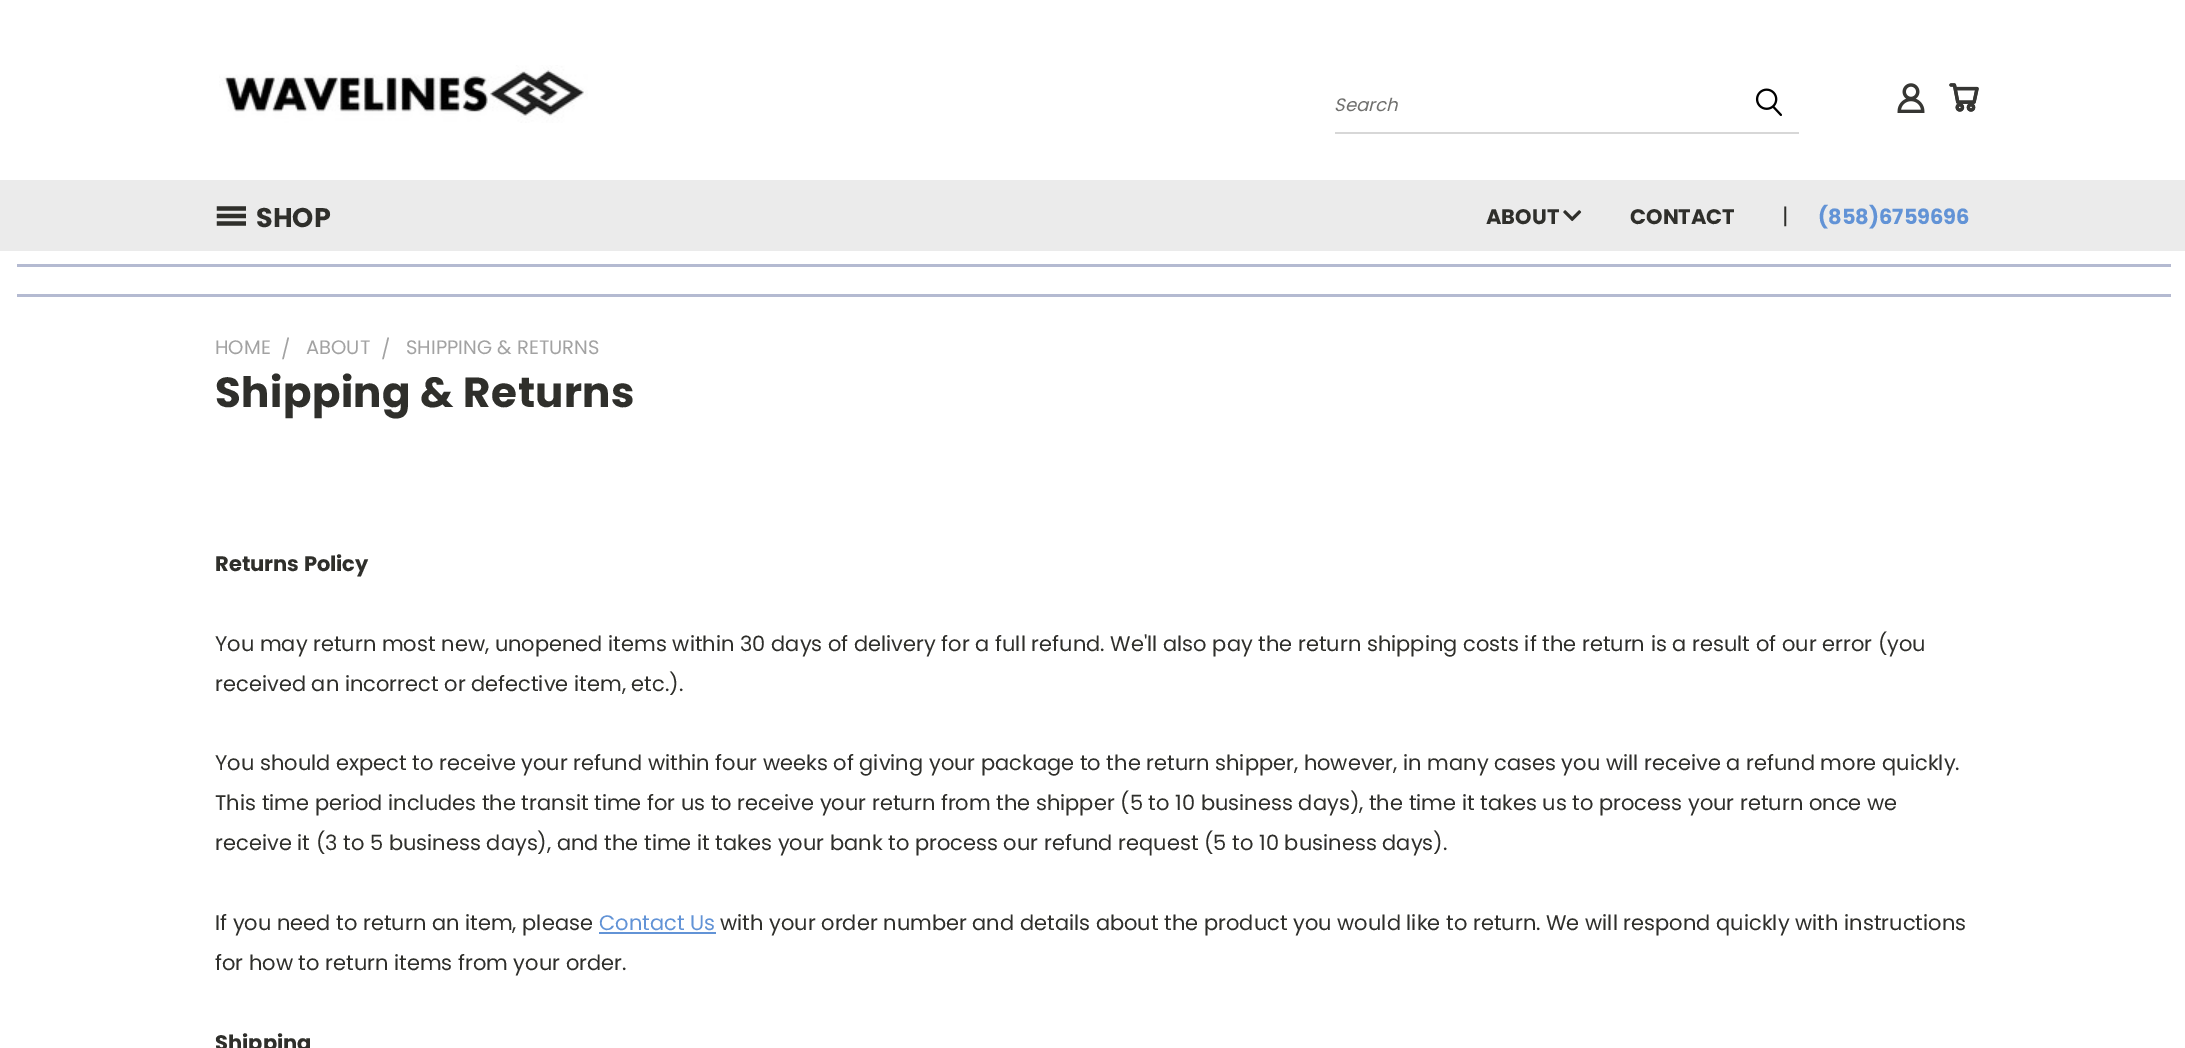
%!PS
<< /PageSize [2185 1048] >> setpagedevice
/rgb { 3 { 255 div 3 1 roll } repeat setrgbcolor } def
/font { [ exch dup neg 0 0 3 -1 roll 0 0 ] selectfont } def
/picture { 5 dict begin { /h /w /y /x /name } { exch def } forall
  gsave x y translate w h scale
  w h 8 [w 0 0 h 0 0] name (r) file false 3 colorimage grestore end } def
0 1048 translate 1 -1 scale
4 setmiterlimit
255 255 255 rgb
0 0 2185 1048 rectfill
(img/1.rgb) 219 65 369 58 picture
215 215 215 rgb
1335 132 464 2 rectfill
(img/2.rgb) 1755 88 27 28 picture
(img/3.rgb) 1897 83 28 30 picture
(img/4.rgb) 1949 83 30 29 picture
235 235 235 rgb
0 180 2185 71 rectfill
(img/5.rgb) 216 206 30 20 picture
(img/6.rgb) 1563 210 19 12 picture
[
  [17 264 2154 3 180 186 209]
  [17 294 2154 3 180 186 209]
  [599 932 117 2 98 147 214]
] { aload pop rgb rectfill } forall
/Poppins-Italic 18 font
112 112 110 rgb
1334 111 moveto (Search) show
/Poppins-Bold 27 font
47 47 43 rgb
256 227 moveto (SHOP) show
/Poppins-Bold 21 font
1486 224 moveto (ABOUT) show
1630 224 moveto (CONTACT) show
/Poppins-Regular 22 font
1782 224 moveto (|) show
/Poppins-Bold 21 font
98 147 214 rgb
1818 224 moveto (\(858\)6759696) show
/Poppins-Regular 19.5 font
162 162 162 rgb
[
  [(HOME) 215 354]
  [(/) 281 356]
  [(ABOUT) 306 354]
  [(/) 381 356]
  [(SHIPPING & RETURNS) 406 354]
] { aload pop moveto show } forall
/Poppins-Bold 42 font
47 47 43 rgb
215 407 moveto 0.4 0 (Shipping & Returns) ashow
/Poppins-Bold 21 font
215 571 moveto (Returns Policy) show
/Poppins-Regular 21 font
[
  [(You may return most new, unopened items within 30 days of delivery for a full refund. We'll also pay the return shipping costs if the return is a result of our error \(you) 215 651]
  [(received an incorrect or defective item, etc.\).) 215 691]
  [(You should expect to receive your refund within four weeks of giving your package to the return shipper, however, in many cases you will receive a refund more quickly.) 215 770]
  [(This time period includes the transit time for us to receive your return from the shipper \(5 to 10 business days\), the time it takes us to process your return once we) 215 810]
  [(receive it \(3 to 5 business days\), and the time it takes your bank to process our refund request \(5 to 10 business days\).) 215 850]
  [(If you need to return an item, please) 215 930]
] { aload pop moveto show } forall
98 147 214 rgb
599 930 moveto (Contact Us) show
47 47 43 rgb
720 930 moveto (with your order number and details about the product you would like to return. We will respond quickly with instructions) show
215 970 moveto (for how to return items from your order.) show
/Poppins-Bold 21 font
215 1050 moveto (Shipping) show
showpage
